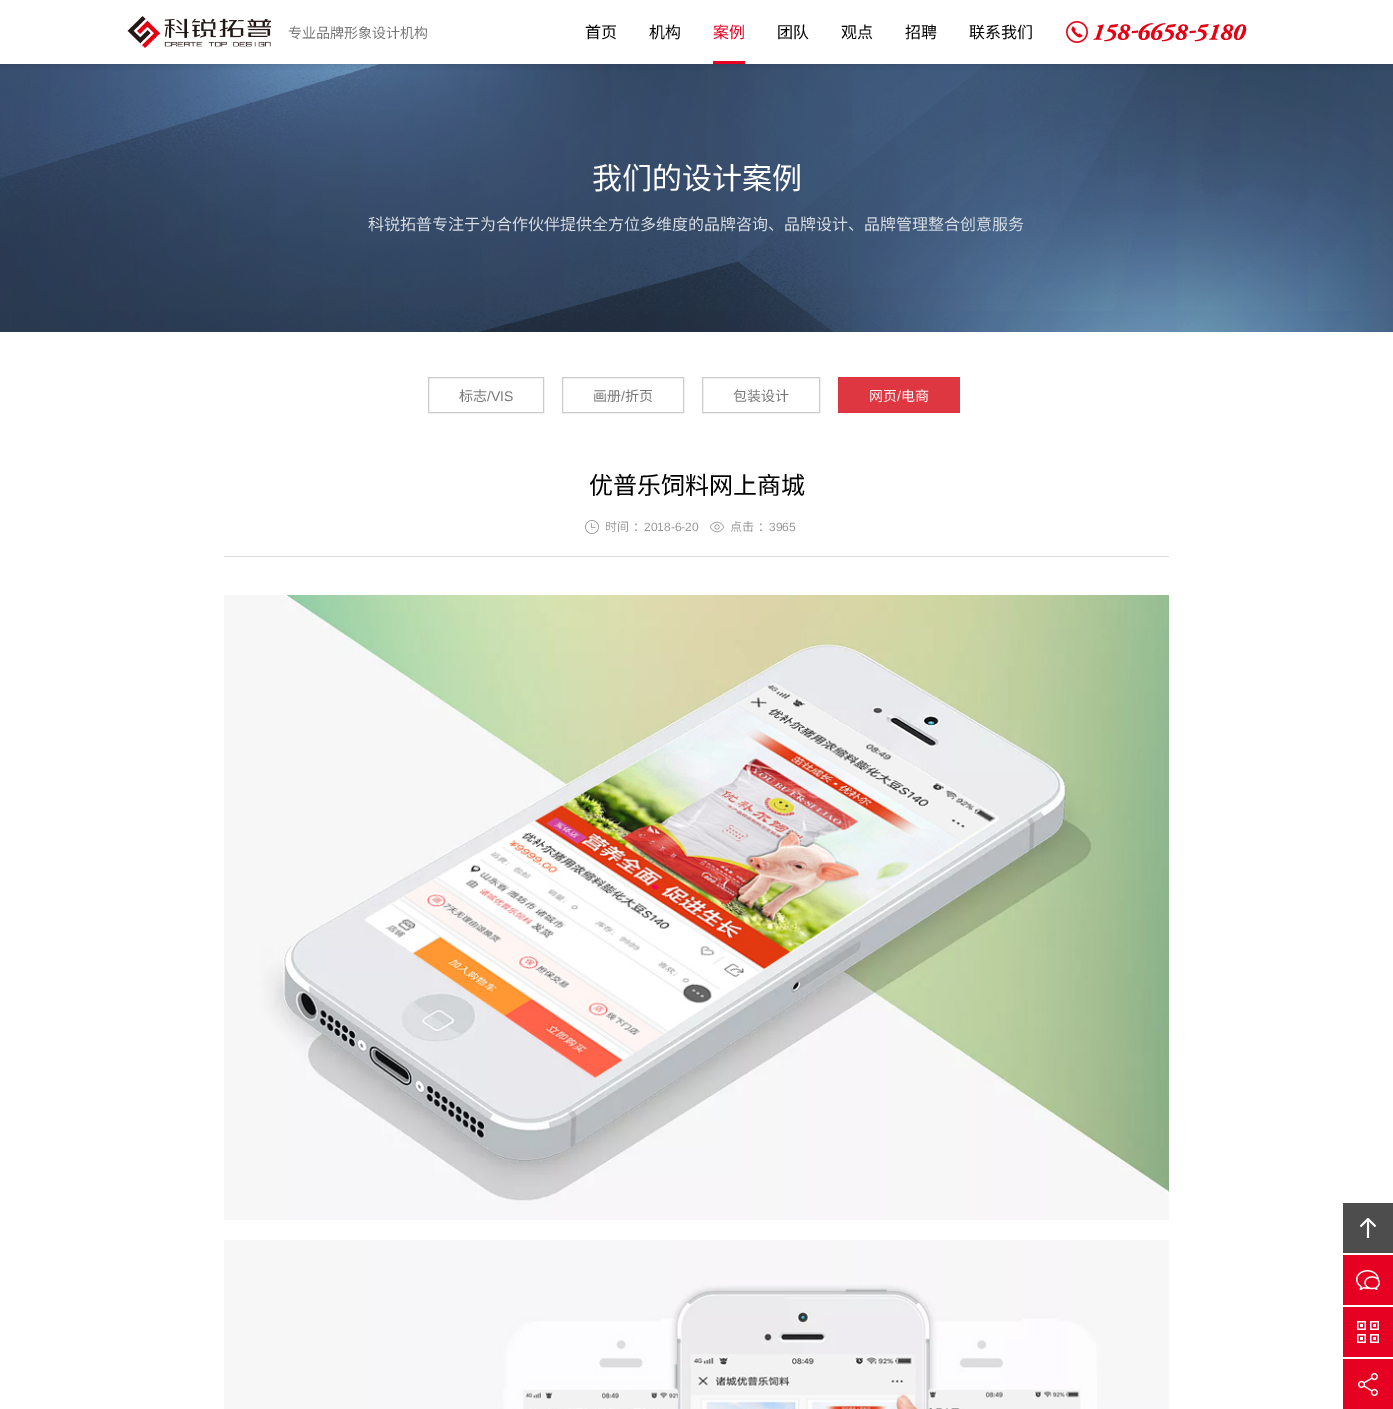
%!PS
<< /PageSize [1393 1409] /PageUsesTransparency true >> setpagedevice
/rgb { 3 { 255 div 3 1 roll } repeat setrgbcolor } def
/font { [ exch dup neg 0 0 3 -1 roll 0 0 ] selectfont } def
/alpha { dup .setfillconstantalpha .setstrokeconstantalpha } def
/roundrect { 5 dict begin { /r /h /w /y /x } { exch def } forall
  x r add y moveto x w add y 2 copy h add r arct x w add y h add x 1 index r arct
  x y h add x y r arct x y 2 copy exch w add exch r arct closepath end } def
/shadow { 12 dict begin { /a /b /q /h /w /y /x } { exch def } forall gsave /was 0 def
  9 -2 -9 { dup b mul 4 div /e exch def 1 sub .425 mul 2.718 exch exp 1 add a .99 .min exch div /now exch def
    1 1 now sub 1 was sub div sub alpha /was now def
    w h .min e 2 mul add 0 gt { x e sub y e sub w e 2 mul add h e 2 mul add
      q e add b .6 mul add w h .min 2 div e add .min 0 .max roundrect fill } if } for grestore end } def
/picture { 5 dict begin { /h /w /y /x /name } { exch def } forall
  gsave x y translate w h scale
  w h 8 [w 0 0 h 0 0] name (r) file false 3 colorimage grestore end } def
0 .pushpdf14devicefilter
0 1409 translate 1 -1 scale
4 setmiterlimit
255 255 255 rgb
0 0 1393 1409 rectfill
(img/3.rgb) 0 64 1393 268 picture
gsave
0 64 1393 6 rectclip
0 0 0 rgb
0 0 1393 64 0 5 0.15 shadow
grestore
(img/1.rgb) 127 16 144 32 picture
230 0 33 rgb
713 61 32 3 rectfill
(img/2.rgb) 1066 21 181 22 picture
204 204 204 rgb
428.5 377.5 115 35 rectstroke
562.5 377.5 121 35 rectstroke
702.5 377.5 117 35 rectstroke
223 55 65 rgb
838 377 122 36 rectfill
221 221 221 rgb
224 556 945 1 rectfill
(img/4.rgb) 585 520 14 14 picture
(img/5.rgb) 710 521 14 12 picture
(img/6.rgb) 224 595 945 625 picture
(img/7.rgb) 224 1240 945 169 picture
77 77 77 rgb
1343 1203 50 50 rectfill
(img/8.rgb) 1360 1218 16 20 picture
230 0 33 rgb
1343 1255 50 50 rectfill
(img/9.rgb) 1356 1270 24 20 picture
1343 1307 50 50 rectfill
(img/10.rgb) 1357 1321 22 22 picture
1343 1359 50 50 rectfill
(img/11.rgb) 1358 1373 20 23 picture
/NotoSansCJKSC-Regular 14 font
119 119 119 rgb
288 38 moveto (专业品牌形象设计机构) show
/NotoSansCJKSC-Regular 16 font
0 0 0 rgb
585 38 moveto (首页) show
649 38 moveto (机构) show
230 0 33 rgb
713 38 moveto (案例) show
0 0 0 rgb
[
  [(团队) 777 38]
  [(观点) 841 38]
  [(招聘) 905 38]
  [(联系我们) 969 38]
] { aload pop moveto show } forall
/NotoSansCJKSC-Regular 30 font
255 255 255 rgb
592 189 moveto (我们的设计案例) show
/NotoSansCJKSC-Regular 16 font
215 220 226 rgb
368 230 moveto (科锐拓普专注于为合作伙伴提供全方位多维度的品牌咨询、品牌设计、品牌管理整合创意服务) show
/NotoSansCJKSC-Regular 14 font
119 119 119 rgb
459 401 moveto (标志) show
/LiberationSans-Regular 14 font
487 401 moveto (/VIS) show
/NotoSansCJKSC-Regular 14 font
593 401 moveto (画册) show
/LiberationSans-Regular 14 font
621 401 moveto (/) show
/NotoSansCJKSC-Regular 14 font
625 401 moveto (折页) show
733 401 moveto (包装设计) show
255 255 255 rgb
869 401 moveto (网页) show
/LiberationSans-Regular 14 font
897 401 moveto (/) show
/NotoSansCJKSC-Regular 14 font
901 401 moveto (电商) show
/NotoSansCJKSC-Regular 24 font
0 0 0 rgb
589 494 moveto (优普乐饲料网上商城) show
/NotoSansCJKSC-Regular 12 font
153 153 153 rgb
605 531 moveto 1 0 32 (时间 ：) widthshow
/LiberationSans-Regular 12 font
644 531 moveto (2018-6-20) show
/NotoSansCJKSC-Regular 12 font
730 531 moveto 1 0 32 (点击 ：) widthshow
/LiberationSans-Regular 12 font
769 531 moveto (3965) show
.poppdf14devicefilter showpage
